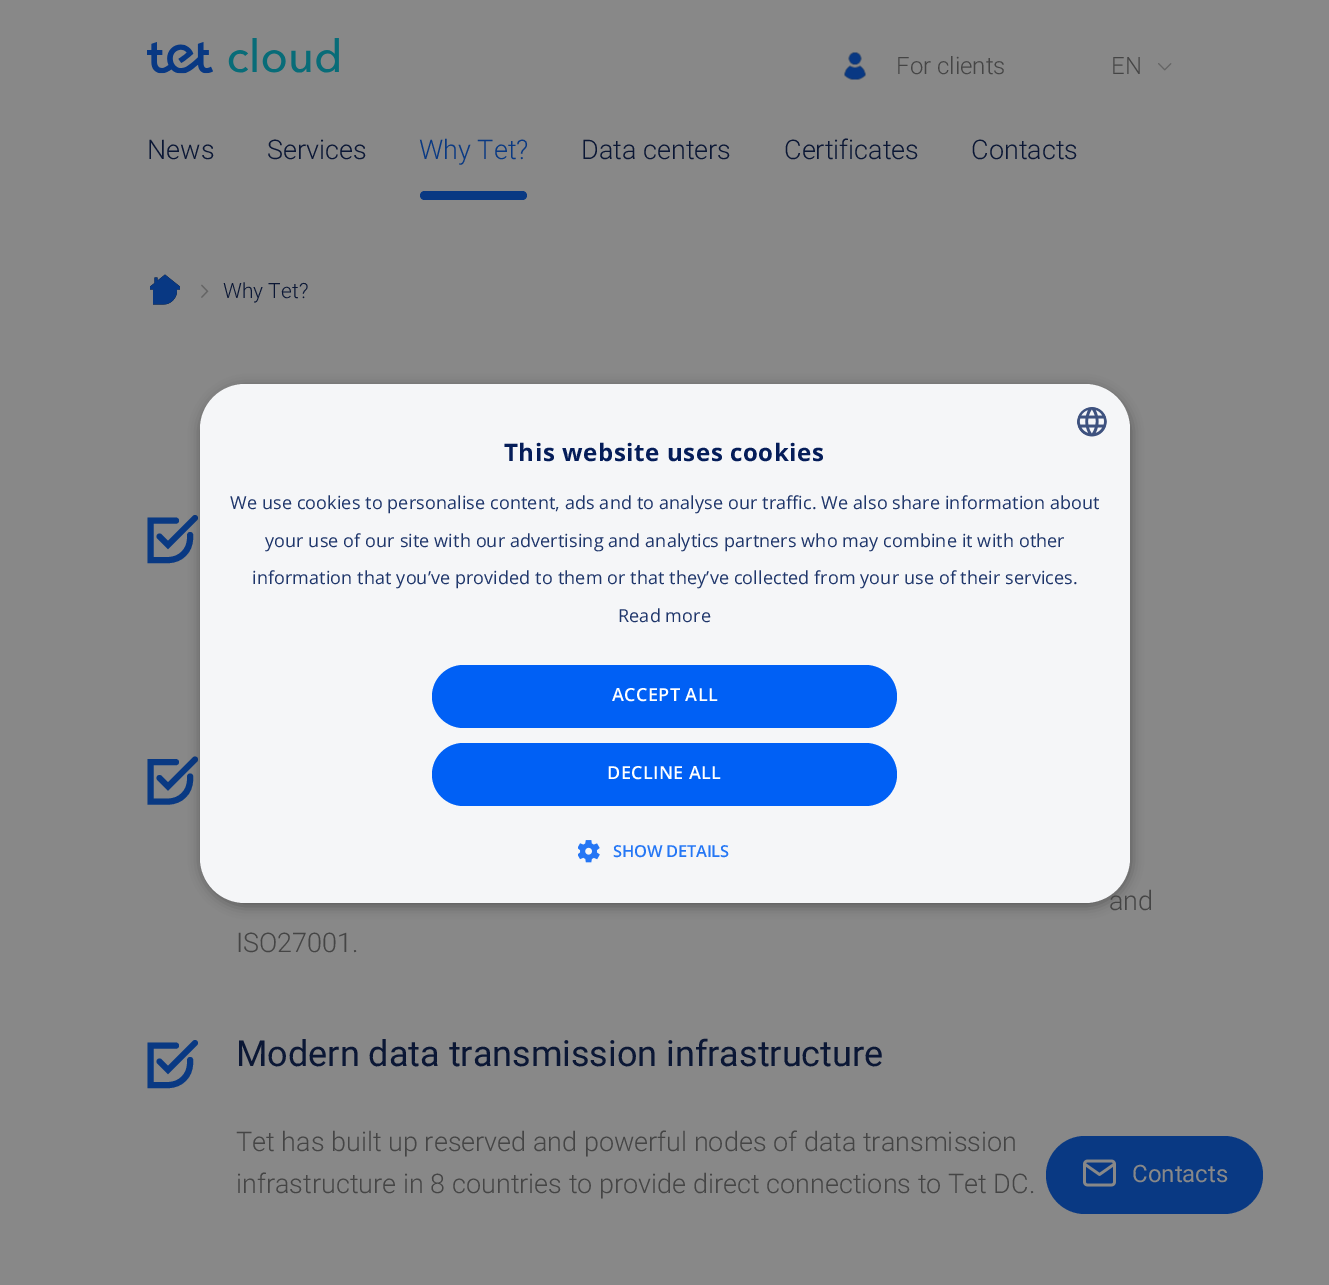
%!PS
<< /PageSize [1329 1285] /PageUsesTransparency true >> setpagedevice
/rgb { 3 { 255 div 3 1 roll } repeat setrgbcolor } def
/font { [ exch dup neg 0 0 3 -1 roll 0 0 ] selectfont } def
/alpha { dup .setfillconstantalpha .setstrokeconstantalpha } def
/roundrect { 5 dict begin { /r /h /w /y /x } { exch def } forall
  x r add y moveto x w add y 2 copy h add r arct x w add y h add x 1 index r arct
  x y h add x y r arct x y 2 copy exch w add exch r arct closepath end } def
/shadow { 12 dict begin { /a /b /q /h /w /y /x } { exch def } forall gsave /was 0 def
  9 -2 -9 { dup b mul 4 div /e exch def 1 sub .425 mul 2.718 exch exp 1 add a .99 .min exch div /now exch def
    1 1 now sub 1 was sub div sub alpha /was now def
    w h .min e 2 mul add 0 gt { x e sub y e sub w e 2 mul add h e 2 mul add
      q e add b .6 mul add w h .min 2 div e add .min 0 .max roundrect fill } if } for grestore end } def
/picture { 5 dict begin { /h /w /y /x /name } { exch def } forall
  gsave x y translate w h scale
  w h 8 [w 0 0 h 0 0] name (r) file false 3 colorimage grestore end } def
0 .pushpdf14devicefilter
0 1285 translate 1 -1 scale
4 setmiterlimit
136 136 136 rgb
0 0 1329 1285 rectfill
(img/1.rgb) 147 38 192 36 picture
(img/2.rgb) 844 52 22 28 picture
(img/3.rgb) 1158 63 14 8 picture
9 57 131 rgb
420 191 107 9 4.5 roundrect fill
(img/4.rgb) 150 274 30 31 picture
(img/5.rgb) 201 284 8 14 picture
6 setlinewidth
1 setlinecap
176 520.5 moveto 150.5 520.5 lineto 150.5 560 lineto 168.5 560 lineto 180.5 560 190 550.5 190 538.5 curveto 190 535 lineto 159.5 536.5 moveto 168 545 lineto 195 518 lineto stroke
176 762 moveto 150.5 762 lineto 150.5 801.5 lineto 168.5 801.5 lineto 180.5 801.5 190 792 190 780 curveto 190 776.5 lineto 159.5 778 moveto 168 786.5 lineto 195 759.5 lineto stroke
176 1045.5 moveto 150.5 1045.5 lineto 150.5 1085 lineto 168.5 1085 lineto 180.5 1085 190 1075.5 190 1063.5 curveto 190 1060 lineto 159.5 1061.5 moveto 168 1070 lineto 195 1043 lineto stroke
0 0 0 rgb
201 387 930 519 45 6 0.35 shadow
9 57 131 rgb
1046 1136 217 78 39 roundrect fill
(img/8.rgb) 1083 1159 33 28 picture
/Roboto-Light 24 font
69 69 69 rgb
896 74 moveto (For clients) show
1111 74 moveto (EN) show
/Roboto-Light 27 font
11 23 53 rgb
147 159 moveto (News) show
267 159 moveto (Services) show
9 57 131 rgb
419 159 moveto (Why Tet?) show
11 23 53 rgb
[
  [(Data centers) 581 159]
  [(Certificates) 784 159]
  [(Contacts) 971 159]
] { aload pop moveto show } forall
/Roboto-Light 21 font
223 298 moveto (Why Tet?) show
/Roboto-Light 27 font
69 69 69 rgb
1109 910 moveto (and) show
236 952 moveto (ISO27001.) show
/Roboto-Regular 36 font
11 23 53 rgb
236 1066 moveto (Modern data transmission infrastructure) show
/Roboto-Light 27 font
69 69 69 rgb
236 1151 moveto (Tet has built up reserved and powerful nodes of data transmission) show
236 1193 moveto (infrastructure in 8 countries to provide direct connections to Tet DC.) show
245 246 248 rgb
200 384 930 519 45 roundrect fill
(img/6.rgb) 1077 407 30 30 picture
/OpenSans-Bold 24 font
5 29 89 rgb
504 461 moveto 0.6 0 (This website uses cookies) ashow
/OpenSans-Regular 18 font
30 53 106 rgb
230 509 moveto 0.11 0 (We use cookies to personalise content, ads and to analyse our traffic. We also share information about) ashow
265 547 moveto 0.11 0 (your use of our site with our advertising and analytics partners who may combine it with other) ashow
252 584 moveto 0.11 0 (information that you’ve provided to them or that they’ve collected from your use of their services.) ashow
618 622 moveto 0.11 0 (Read more) ashow
0 96 245 rgb
432 665 465 63 31.5 roundrect fill
/OpenSans-SemiBold 18 font
255 255 255 rgb
612 701 moveto 0.4 0 (ACCEPT ALL) ashow
0 96 245 rgb
432 743 465 63 31.5 roundrect fill
255 255 255 rgb
607 779 moveto 0.4 0 (DECLINE ALL) ashow
(img/7.rgb) 578 840 22 23 picture
/OpenSans-SemiBold 16.5 font
37 119 245 rgb
613 857 moveto -0.25 0 (SHOW DETAILS) ashow
/Roboto-Regular 24 font
136 136 136 rgb
1132 1182 moveto (Contacts) show
.poppdf14devicefilter showpage
